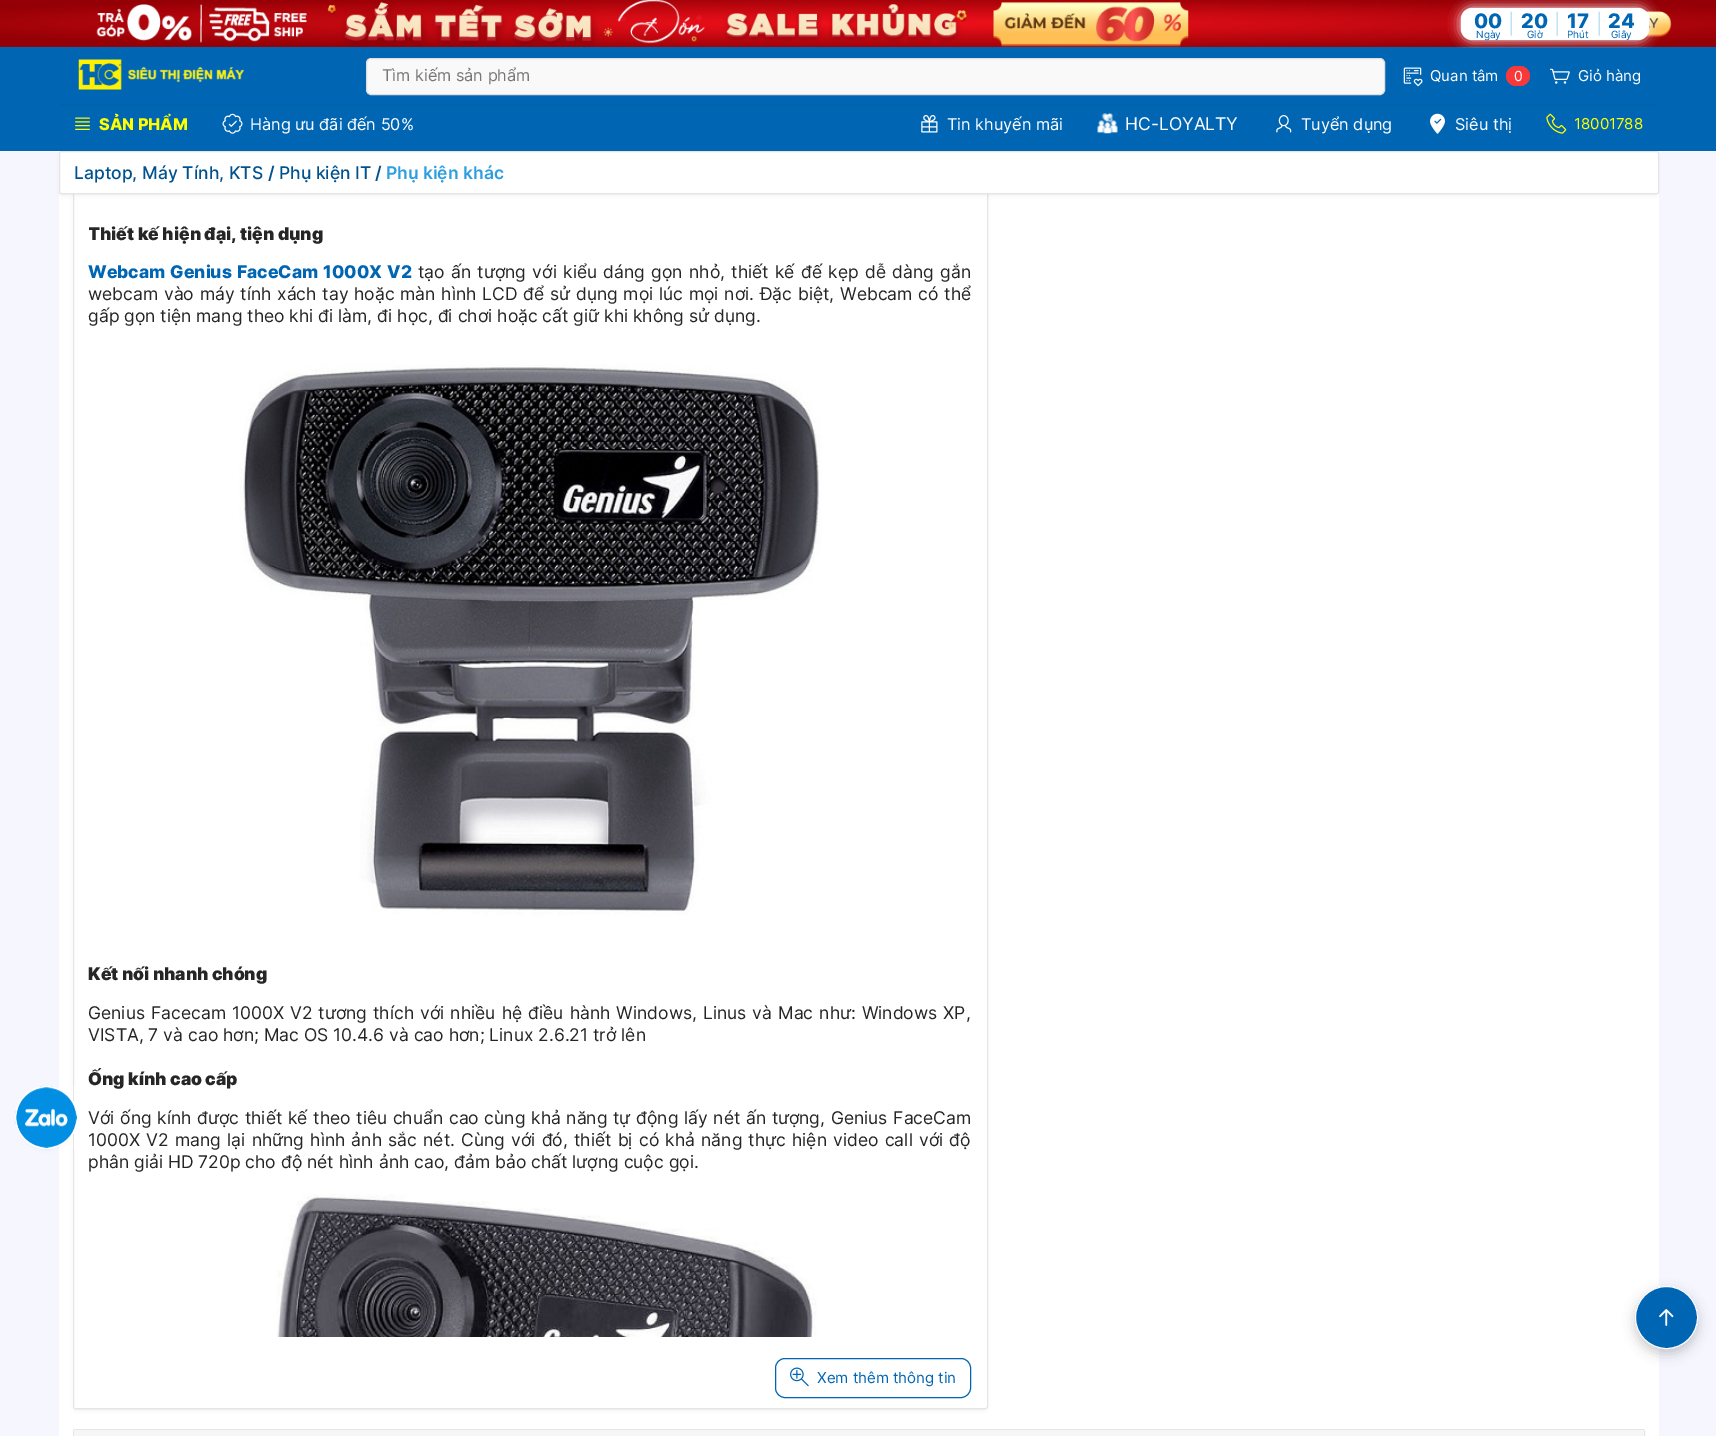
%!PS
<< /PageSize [1716 1436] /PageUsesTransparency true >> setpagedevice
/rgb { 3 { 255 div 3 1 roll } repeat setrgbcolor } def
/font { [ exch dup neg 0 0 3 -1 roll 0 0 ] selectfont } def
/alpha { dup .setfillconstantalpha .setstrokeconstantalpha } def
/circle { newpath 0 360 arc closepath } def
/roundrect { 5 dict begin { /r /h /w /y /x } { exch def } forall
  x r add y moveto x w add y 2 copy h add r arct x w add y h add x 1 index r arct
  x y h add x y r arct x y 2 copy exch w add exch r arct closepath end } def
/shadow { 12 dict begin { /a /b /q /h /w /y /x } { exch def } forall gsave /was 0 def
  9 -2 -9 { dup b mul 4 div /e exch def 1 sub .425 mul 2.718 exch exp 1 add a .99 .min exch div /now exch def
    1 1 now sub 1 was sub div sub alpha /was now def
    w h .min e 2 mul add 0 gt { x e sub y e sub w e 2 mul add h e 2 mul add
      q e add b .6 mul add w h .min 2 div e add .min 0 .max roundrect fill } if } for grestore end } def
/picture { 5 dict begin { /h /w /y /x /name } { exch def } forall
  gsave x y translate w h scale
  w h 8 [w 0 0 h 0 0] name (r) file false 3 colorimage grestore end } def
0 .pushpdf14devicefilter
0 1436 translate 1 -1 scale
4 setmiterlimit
246 246 255 rgb
0 0 1716 1436 rectfill
255 255 255 rgb
59 194 1600 1242 rectfill
0 0 0 rgb
75 -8 910 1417 0 2.5 0.1 shadow
255 255 255 rgb
73.5 -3.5 914 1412 2 roundrect gsave fill grestore
229 229 229 rgb
stroke
255 255 255 rgb
59 151 1600 43 rectfill
0 0 0 rgb
61 156 1595 38 0 2.5 0.1 shadow
0 102 179 rgb
0 46 1716 105 rectfill
(img/1.rgb) 0 0 1716 47 picture
255 255 255 rgb
1461 8 188 32 11 6 1 shadow
1461 8 188 32 11 roundrect fill
0 0 0 rgb
61 53 1595 51 0 2.5 0.1 shadow
0 102 179 rgb
59 48 1600 56 rectfill
(img/2.rgb) 78 59 167 31 picture
249 249 249 rgb
366.5 58.5 1018 36 4.5 roundrect gsave fill grestore
223 223 223 rgb
stroke
(img/3.rgb) 1403 67 20 20 picture
249 57 57 rgb
1506 66 24 20 10 roundrect fill
(img/4.rgb) 1550 68 20 16 picture
(img/5.rgb) 75 117 15 13 picture
(img/6.rgb) 222 113 21 21 picture
(img/7.rgb) 921 115 17 18 picture
(img/8.rgb) 1097 113 21 21 picture
(img/9.rgb) 1276 115 16 18 picture
(img/10.rgb) 1430 113 15 21 picture
(img/11.rgb) 1546 113 21 21 picture
255 255 255 rgb
59.5 151.5 1599 42 2 roundrect gsave fill grestore
229 229 229 rgb
stroke
(img/12.rgb) 239 364 583 553 picture
(img/13.rgb) 276 1193 541 144 picture
0 102 179 rgb
775.5 1358.5 195 39 9.5 roundrect stroke
(img/14.rgb) 790 1367 19 20 picture
229 229 229 rgb
73.5 1429.5 1571 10 2 roundrect stroke
246 246 246 rgb
76.5 1430 moveto 1641.5 1430 lineto 1643 1430 1644 1431 1644 1432.5 curveto 1644 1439 lineto 74 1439 lineto 74 1432.5 lineto 74 1431 75 1430 76.5 1430 curveto closepath fill
0 0 0 rgb
19 1093 55 55 27.5 2.5 0.1 shadow
248 248 248 rgb
46.5 1117.5 31.5 circle fill
(img/15.rgb) 15 1086 63 64 picture
255 255 255 rgb
46.5 1117.5 31 circle stroke
0 0 0 rgb
1635 1291 63 63 31.5 6 0.2 shadow
0 102 179 rgb
1666.5 1317.5 31 circle gsave fill grestore
255 255 255 rgb
stroke
(img/16.rgb) 1659 1309 15 17 picture
/Inter-ExtraBold 20 font
0 102 179 rgb
1474 28 moveto (00) show
/Inter-Regular 10 font
1476 38 moveto (Ngày) show
/Inter-Regular 20 font
192 226 246 rgb
1508 31 moveto (|) show
/Inter-ExtraBold 20 font
0 102 179 rgb
1521 28 moveto (20) show
/Inter-Regular 10 font
1527 38 moveto (Giờ) show
/Inter-Regular 20 font
192 226 246 rgb
1554 31 moveto (|) show
/Inter-ExtraBold 20 font
0 102 179 rgb
1567 28 moveto (17) show
/Inter-Regular 10 font
1567 38 moveto (Phút) show
/Inter-Regular 20 font
192 226 246 rgb
1596 31 moveto (|) show
/Inter-ExtraBold 20 font
0 102 179 rgb
1608 28 moveto (24) show
/Inter-Regular 10 font
1611 38 moveto (Giây) show
/Inter-Regular 16.25 font
119 119 119 rgb
382 81 moveto (Tìm kiếm sản phẩm) show
/Inter-Regular 15 font
255 255 255 rgb
1430 81 moveto (Quan tâm) show
/Inter-Regular 14 font
1514 81 moveto (0) show
/Inter-Regular 15 font
1578 81 moveto (Giỏ hàng) show
/Inter-ExtraBold 16.25 font
255 255 0 rgb
99 130 moveto (SẢN PHẨM) show
/Inter-Regular 16.25 font
255 255 255 rgb
250 130 moveto (Hàng ưu đãi đến 50%) show
947 130 moveto (Tin khuyến mãi) show
/Inter-Regular 17.5 font
1125 130 moveto (HC-LOYALTY) show
/Inter-Regular 16.25 font
1301 130 moveto (Tuyển dụng) show
1455 130 moveto (Siêu thị) show
/Inter-Regular 15 font
255 255 0 rgb
1574 129 moveto (18001788) show
/Inter-Medium 17.5 font
0 82 143 rgb
74 179 moveto (Laptop, Máy Tính, KTS) show
/Inter-SemiBold 17.5 font
268 179 moveto (/) show
/Inter-Medium 17.5 font
279 179 moveto (Phụ kiện IT) show
/Inter-SemiBold 17.5 font
375 179 moveto (/) show
45 158 224 rgb
386 179 moveto (Phụ kiện khác) show
gsave
89 0 882 1338 rectclip
/Inter-Black 17.5 font
38 38 38 rgb
88 240 moveto (Thiết kế hiện đại, tiện dụng) show
grestore
/Inter-ExtraBold 17.5 font
0 102 179 rgb
88 278 moveto 1.4 0 32 (Webcam Genius FaceCam 1000X V2) widthshow
/Inter-Regular 17.5 font
38 38 38 rgb
418 278 moveto 1.4 0 32 (tạo ấn tượng với kiểu dáng gọn nhỏ, thiết kế đế kẹp dễ dàng gắn) widthshow
88 300 moveto 0.85 0 32 (webcam vào máy tính xách tay hoặc màn hình LCD để sử dụng mọi lúc mọi nơi. Đặc biệt, Webcam có thể) widthshow
88 322 moveto (gấp gọn tiện mang theo khi đi làm, đi học, đi chơi hoặc cất giữ khi không sử dụng.) show
/Inter-Black 17.5 font
88 980 moveto (Kết nối nhanh chóng) show
/Inter-Regular 17.5 font
88 1019 moveto 1.1 0 32 (Genius Facecam 1000X V2 tương thích với nhiều hệ điều hành Windows, Linus và Mac như: Windows XP,) widthshow
88 1041 moveto (VISTA, 7 và cao hơn; Mac OS 10.4.6 và cao hơn; Linux 2.6.21 trở lên) show
/Inter-Black 17.5 font
88 1085 moveto (Ống kính cao cấp) show
/Inter-Regular 17.5 font
88 1124 moveto 0.75 0 32 (Với ống kính được thiết kế theo tiêu chuẩn cao cùng khả năng tự động lấy nét ấn tượng, Genius FaceCam) widthshow
88 1146 moveto 1.3 0 32 (1000X V2 mang lại những hình ảnh sắc nét. Cùng với đó, thiết bị có khả năng thực hiện video call với độ) widthshow
88 1168 moveto (phân giải HD 720p cho độ nét hình ảnh cao, đảm bảo chất lượng cuộc gọi.) show
/Inter-Regular 15 font
0 102 179 rgb
817 1383 moveto (Xem thêm thông tin) show
.poppdf14devicefilter showpage
